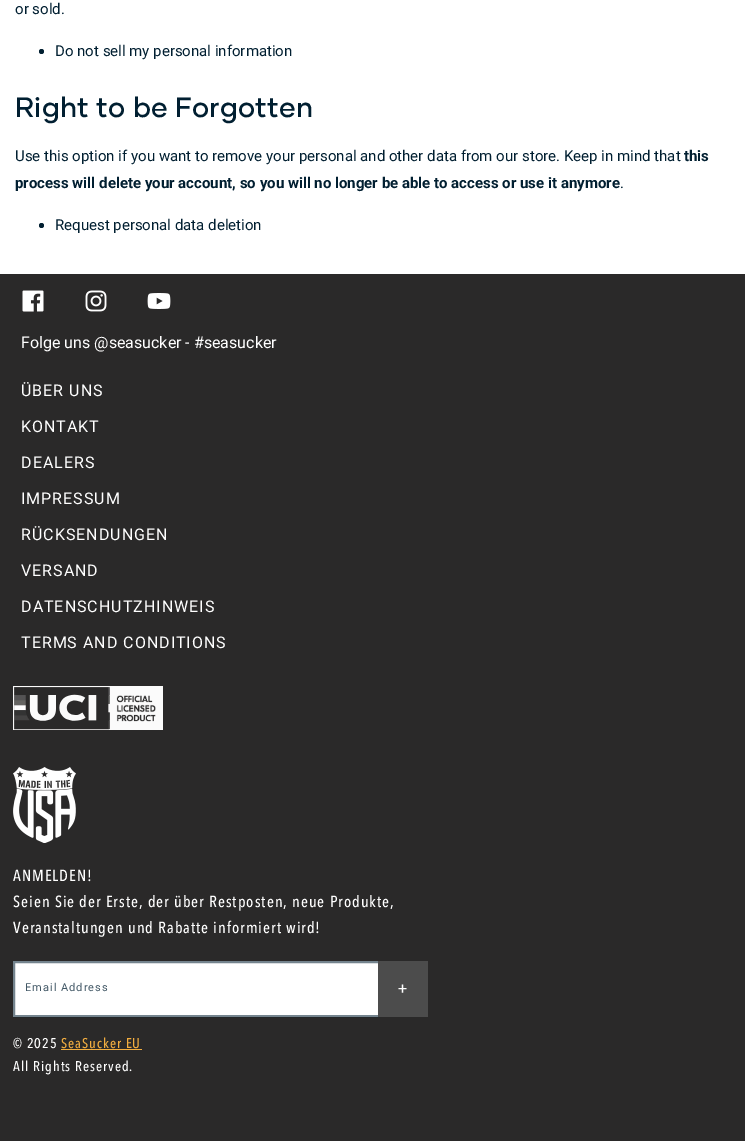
%!PS
<< /PageSize [745 1141] /PageUsesTransparency true >> setpagedevice
/rgb { 3 { 255 div 3 1 roll } repeat setrgbcolor } def
/font { [ exch dup neg 0 0 3 -1 roll 0 0 ] selectfont } def
/alpha { dup .setfillconstantalpha .setstrokeconstantalpha } def
/circle { newpath 0 360 arc closepath } def
/picture { 5 dict begin { /h /w /y /x /name } { exch def } forall
  gsave x y translate w h scale
  w h 8 [w 0 0 h 0 0] name (r) file false 3 colorimage grestore end } def
0 .pushpdf14devicefilter
0 1141 translate 1 -1 scale
4 setmiterlimit
255 255 255 rgb
0 0 745 1141 rectfill
1 31 49 rgb
41.5 51.5 2.5 circle fill
41.5 225.5 2.5 circle fill
42 41 41 rgb
0 274 745 867 rectfill
(img/1.rgb) 22 290 22 22 picture
(img/2.rgb) 85 290 22 22 picture
(img/3.rgb) 147 293 24 16 picture
(img/4.rgb) 13 686 150 44 picture
(img/5.rgb) 13 767 63 76 picture
255 255 255 rgb
13 961 365 56 rectfill
0.55 alpha
1 31 49 rgb
2 setlinewidth
14 962 365 54 rectstroke
1 alpha
76 76 76 rgb
378 961 50 56 rectfill
242 173 63 rgb
61 1049 81 1 rectfill
/Roboto-Regular 15 font
1 31 49 rgb
15 14 moveto (or sold.) show
55 56 moveto (Do not sell my personal information) show
/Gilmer-SemiBold 28 font
15 117 moveto 0.25 0 (Right to be Forgotten) ashow
/Roboto-Regular 15 font
15 161 moveto (Use this option if you want to remove your personal and other data from our store. Keep in mind that) show
/Roboto-Bold 15 font
684 161 moveto (this) show
15 188 moveto (process will delete your account, so you will no longer be able to access or use it anymore) show
/Roboto-Regular 15 font
620 188 moveto (.) show
55 230 moveto (Request personal data deletion) show
/Roboto-Regular 16 font
255 255 255 rgb
21 348 moveto (Folge uns @seasucker - #seasucker) show
21 396 moveto 1 0 (ÜBER UNS) ashow
21 432 moveto 1 0 (KONTAKT) ashow
21 468 moveto 1 0 (DEALERS) ashow
21 504 moveto 1 0 (IMPRESSUM) ashow
21 540 moveto 1 0 (RÜCKSENDUNGEN) ashow
21 576 moveto 1 0 (VERSAND) ashow
21 612 moveto 1 0 (DATENSCHUTZHINWEIS) ashow
21 648 moveto 1 0 (TERMS AND CONDITIONS) ashow
/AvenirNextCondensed-Medium 16 font
13 881 moveto 1 0 (ANMELDEN!) ashow
13 907 moveto 1 0 (Seien Sie der Erste, der über Restposten, neue Produkte,) ashow
13 933 moveto 1 0 (Veranstaltungen und Rabatte informiert wird!) ashow
/Roboto-Regular 11 font
65 87 101 rgb
25 991 moveto 1 0 (Email Address) ashow
/Roboto-Regular 16 font
255 255 255 rgb
398 994 moveto 1 0 (+) ashow
/AvenirNextCondensed-Medium 14 font
13 1048 moveto 1 0 (© 2025) ashow
242 173 63 rgb
61 1048 moveto 1 0 (SeaSucker EU) ashow
255 255 255 rgb
13 1071 moveto 1 0 (All Rights Reserved.) ashow
.poppdf14devicefilter showpage
